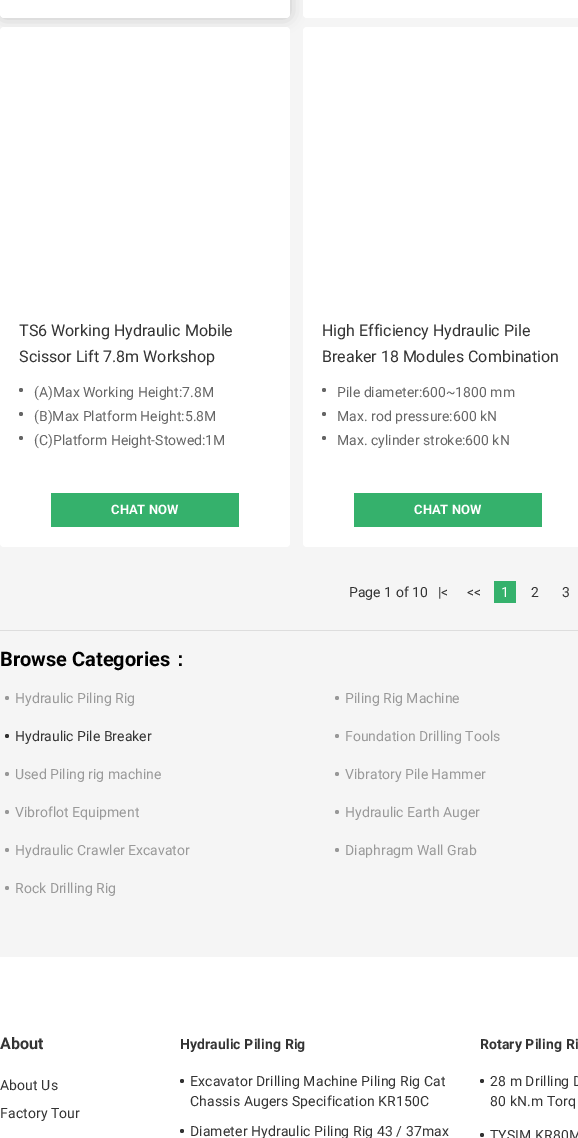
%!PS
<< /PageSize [578 1138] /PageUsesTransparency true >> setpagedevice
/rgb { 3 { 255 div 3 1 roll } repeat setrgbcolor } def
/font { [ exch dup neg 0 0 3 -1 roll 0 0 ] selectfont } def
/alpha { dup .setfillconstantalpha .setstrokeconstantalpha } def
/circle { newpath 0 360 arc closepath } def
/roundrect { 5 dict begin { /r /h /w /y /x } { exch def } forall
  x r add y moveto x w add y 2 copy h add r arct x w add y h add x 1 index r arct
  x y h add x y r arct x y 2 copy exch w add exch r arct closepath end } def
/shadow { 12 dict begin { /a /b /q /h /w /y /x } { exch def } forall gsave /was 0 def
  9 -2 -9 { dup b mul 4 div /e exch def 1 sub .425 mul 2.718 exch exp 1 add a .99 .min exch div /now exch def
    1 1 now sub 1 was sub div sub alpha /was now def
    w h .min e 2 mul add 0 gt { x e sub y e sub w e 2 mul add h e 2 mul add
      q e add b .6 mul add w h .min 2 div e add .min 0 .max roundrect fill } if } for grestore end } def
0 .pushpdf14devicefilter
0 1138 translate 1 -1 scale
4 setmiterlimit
245 245 245 rgb
0 0 578 1138 rectfill
0 0 0 rgb
0 -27 290 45 4 7.5 0.18 shadow
255 255 255 rgb
0 -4 290 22 4 roundrect fill
303 -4 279 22 4 roundrect fill
0 27 290 520 4 roundrect fill
102 102 102 rgb
21 390 2 circle fill
21 414 2 circle fill
21 438 2 circle fill
53 177 108 rgb
51 493 188 34 rectfill
255 255 255 rgb
303 27 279 520 4 roundrect fill
102 102 102 rgb
324 390 2 circle fill
324 414 2 circle fill
324 438 2 circle fill
[
  [354 493 188 34 53 177 108]
  [494 581 22 22 53 177 108]
  [0 630 578 1 221 221 221]
] { aload pop rgb rectfill } forall
153 153 153 rgb
7 698 2 circle fill
337 698 2 circle fill
51 51 51 rgb
7 736 2 circle fill
153 153 153 rgb
337 736 2 circle fill
7 774 2 circle fill
337 774 2 circle fill
7 812 2 circle fill
337 812 2 circle fill
7 850 2 circle fill
337 850 2 circle fill
7 888 2 circle fill
255 255 255 rgb
0 957 578 181 rectfill
51 51 51 rgb
182 1081 2 circle fill
182 1131 2 circle fill
482 1081 2 circle fill
482 1135 2 circle fill
/Roboto-Regular 16 font
19 336 moveto (TS6 Working Hydraulic Mobile) show
19 362 moveto (Scissor Lift 7.8m Workshop) show
/Roboto-Regular 14 font
102 102 102 rgb
[
  [(\(A\)Max Working Height:7.8M) 34 397]
  [(\(B\)Max Platform Height:5.8M) 34 421]
  [(\(C\)Platform Height-Stowed:1M) 34 445]
] { aload pop moveto show } forall
/Roboto-Bold 13 font
255 255 255 rgb
111 514 moveto (CHAT NOW) show
/Roboto-Regular 16 font
51 51 51 rgb
322 336 moveto (High Efficiency Hydraulic Pile) show
322 362 moveto (Breaker 18 Modules Combination) show
/Roboto-Regular 14 font
102 102 102 rgb
[
  [(Pile diameter:600~1800 mm) 337 397]
  [(Max. rod pressure:600 kN) 337 421]
  [(Max. cylinder stroke:600 kN) 337 445]
] { aload pop moveto show } forall
/Roboto-Bold 13 font
255 255 255 rgb
414 514 moveto (CHAT NOW) show
/Roboto-Regular 14 font
51 51 51 rgb
[
  [(Page 1 of 10) 349 597]
  [(|<) 438 597]
  [(<<) 467 597]
] { aload pop moveto show } forall
255 255 255 rgb
501 597 moveto (1) show
51 51 51 rgb
531 597 moveto (2) show
562 597 moveto (3) show
/Roboto-Bold 20 font
0 0 0 rgb
0 666 moveto (Browse Categories) show
/WenQuanYiZenHei-Bold 20 font
170 666 moveto (：) show
/Roboto-Regular 14 font
153 153 153 rgb
15 703 moveto (Hydraulic Piling Rig) show
345 703 moveto (Piling Rig Machine) show
51 51 51 rgb
15 741 moveto (Hydraulic Pile Breaker) show
153 153 153 rgb
[
  [(Foundation Drilling Tools) 345 741]
  [(Used Piling rig machine) 15 779]
  [(Vibratory Pile Hammer) 345 779]
  [(Vibroflot Equipment) 15 817]
  [(Hydraulic Earth Auger) 345 817]
  [(Hydraulic Crawler Excavator) 15 855]
  [(Diaphragm Wall Grab) 345 855]
  [(Rock Drilling Rig) 15 893]
] { aload pop moveto show } forall
/Roboto-Bold 16 font
51 51 51 rgb
0 1049 moveto (About) show
/Roboto-Regular 14 font
0 1090 moveto 0.1 0 (About Us) ashow
0 1118 moveto 0.1 0 (Factory Tour) ashow
/Roboto-Bold 14 font
180 1049 moveto 0.1 0 (Hydraulic Piling Rig) ashow
/Roboto-Regular 14 font
190 1086 moveto 0.1 0 (Excavator Drilling Machine Piling Rig Cat) ashow
190 1106 moveto 0.1 0 (Chassis Augers Specification KR150C) ashow
190 1136 moveto 0.1 0 (Diameter Hydraulic Piling Rig 43 / 37max) ashow
/Roboto-Bold 14 font
480 1049 moveto 0.1 0 (Rotary Piling Ri) ashow
/Roboto-Regular 14 font
490 1086 moveto 0.1 0 (28 m Drilling D) ashow
490 1106 moveto 0.1 0 (80 kN.m Torq) ashow
490 1140 moveto 0.1 0 (TYSIM KR80M) ashow
.poppdf14devicefilter showpage
